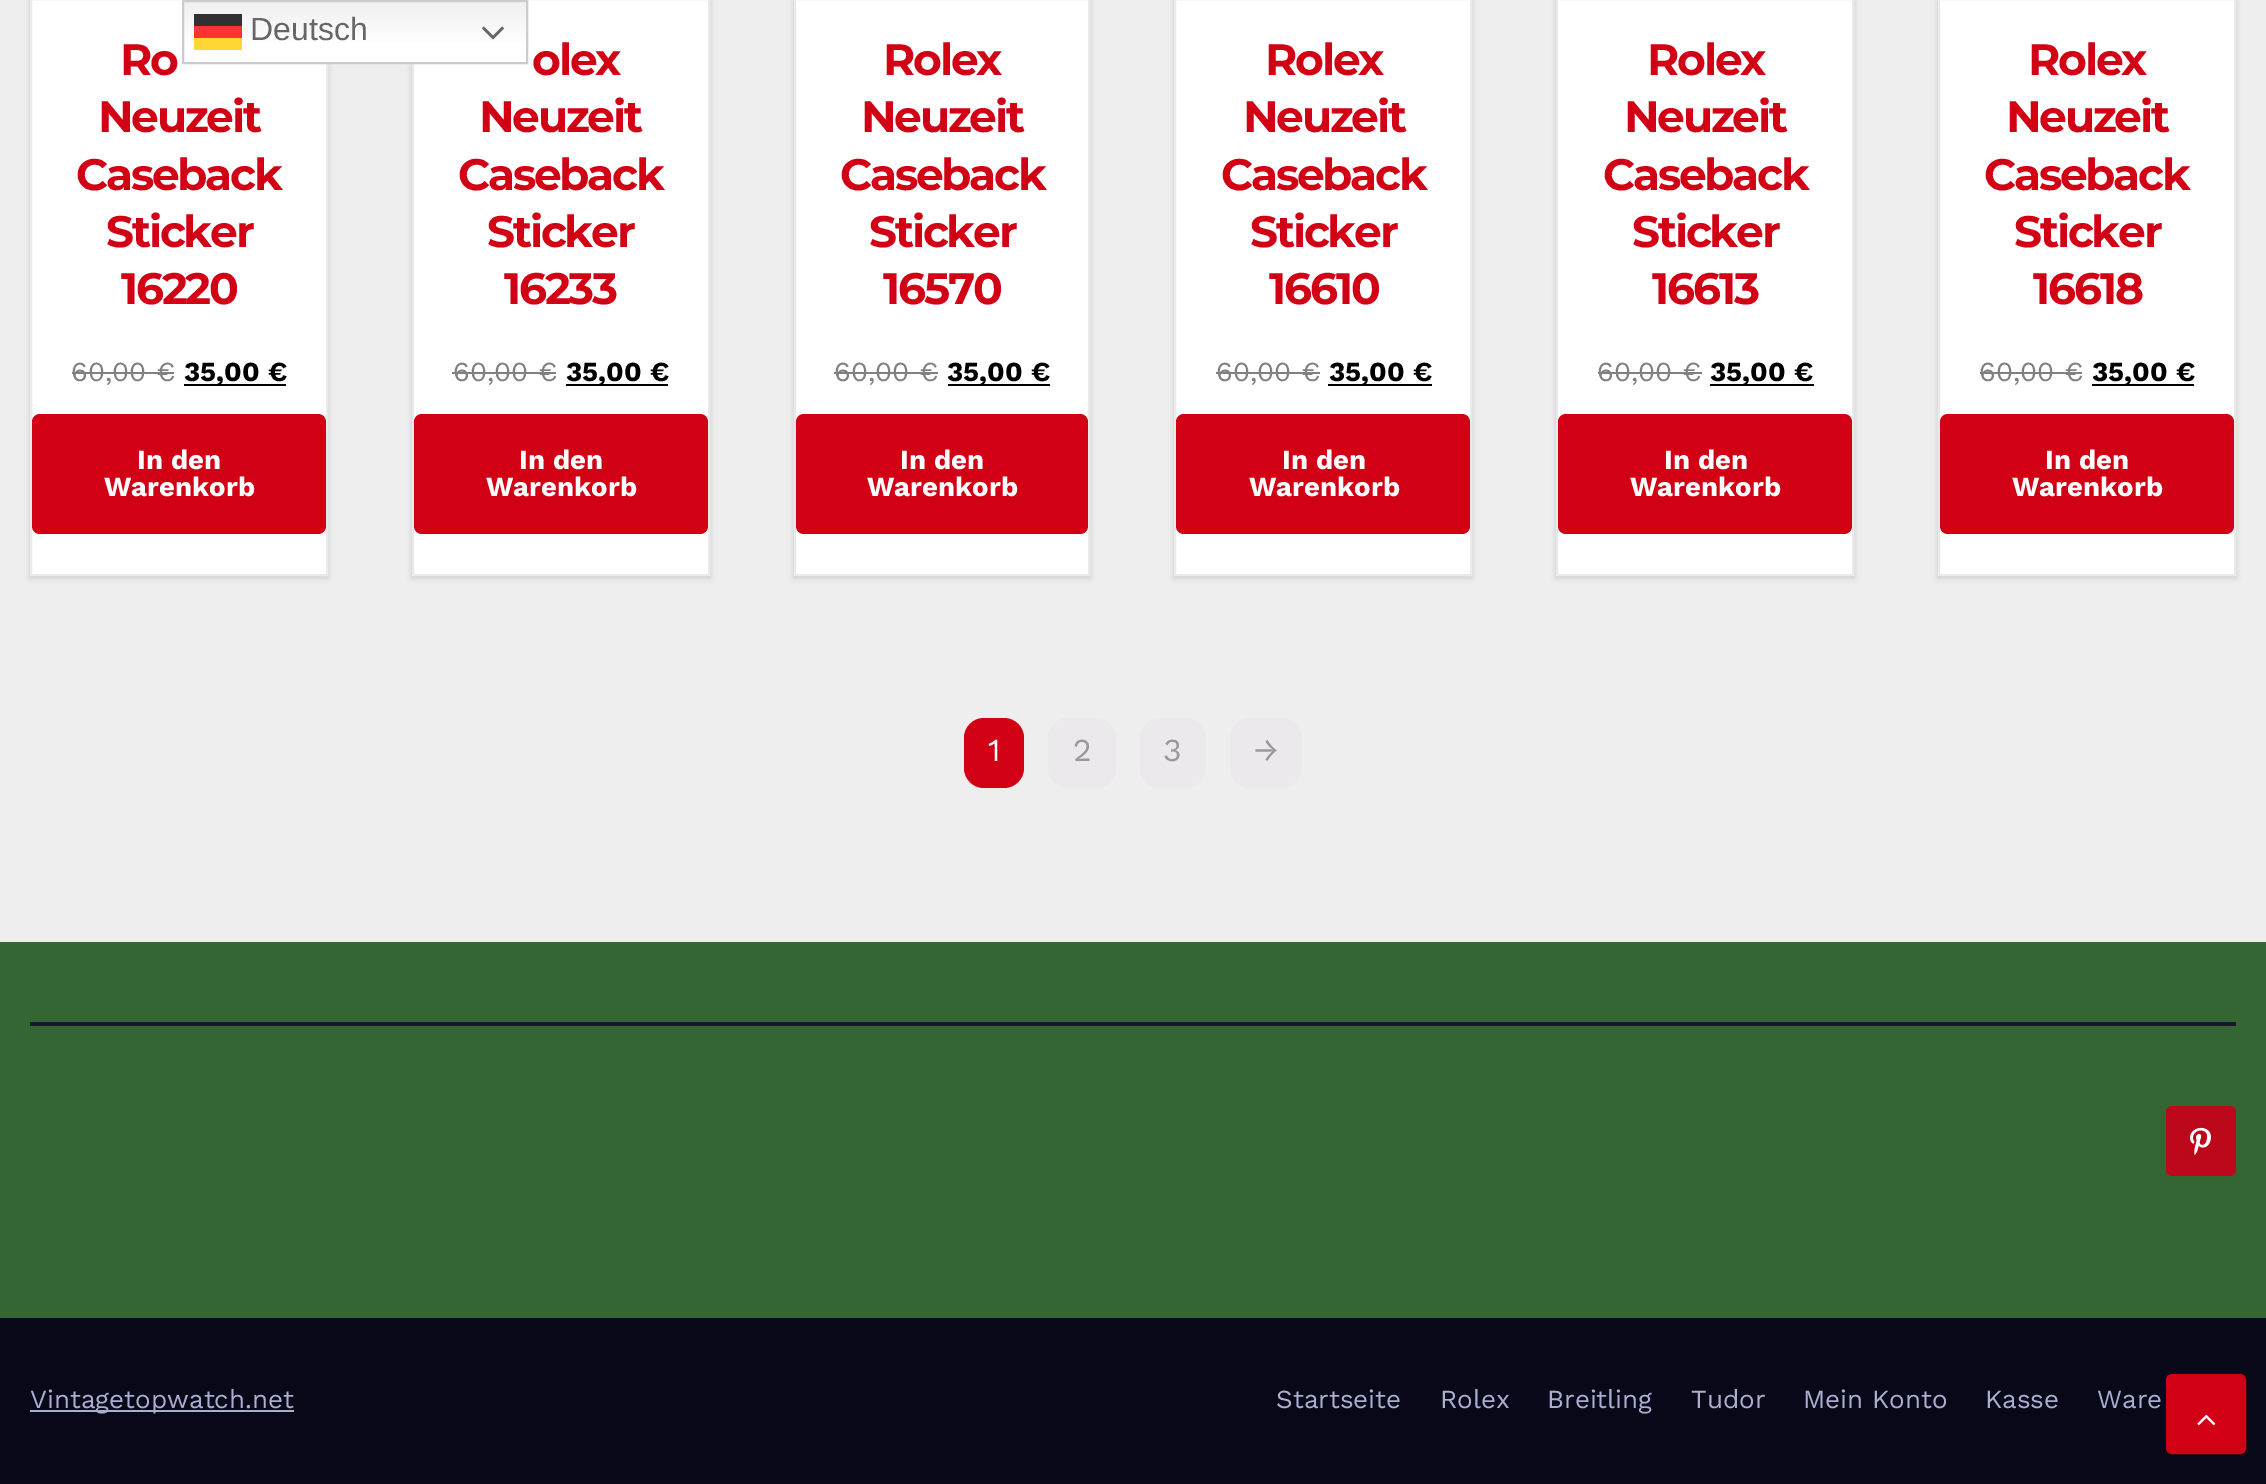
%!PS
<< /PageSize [2266 1484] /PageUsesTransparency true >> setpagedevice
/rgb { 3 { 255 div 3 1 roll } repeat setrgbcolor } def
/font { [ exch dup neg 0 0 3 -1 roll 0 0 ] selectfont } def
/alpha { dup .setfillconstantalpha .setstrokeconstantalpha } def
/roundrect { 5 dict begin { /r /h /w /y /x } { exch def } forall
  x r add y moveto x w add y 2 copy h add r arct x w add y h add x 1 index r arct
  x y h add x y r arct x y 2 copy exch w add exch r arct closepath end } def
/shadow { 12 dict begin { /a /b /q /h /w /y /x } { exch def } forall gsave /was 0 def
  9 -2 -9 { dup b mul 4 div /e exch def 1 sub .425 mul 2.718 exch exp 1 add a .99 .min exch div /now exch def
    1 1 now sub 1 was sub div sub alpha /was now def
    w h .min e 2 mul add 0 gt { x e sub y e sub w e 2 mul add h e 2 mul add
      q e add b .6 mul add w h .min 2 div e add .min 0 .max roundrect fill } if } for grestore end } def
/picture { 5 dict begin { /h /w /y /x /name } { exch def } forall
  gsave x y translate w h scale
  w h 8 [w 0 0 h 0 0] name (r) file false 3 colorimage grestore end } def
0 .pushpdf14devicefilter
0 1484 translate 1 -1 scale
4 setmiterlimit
238 238 238 rgb
0 0 2266 1484 rectfill
0 0 0 rgb
30 -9 298 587 0 3 0.15 shadow
255 255 255 rgb
31 -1 moveto 327 -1 lineto 327 575 lineto 31 575 lineto closepath gsave fill grestore
234 234 234 rgb
2 setlinewidth
stroke
0 0 0 rgb
412 -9 298 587 0 3 0.15 shadow
255 255 255 rgb
413 -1 moveto 709 -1 lineto 709 575 lineto 413 575 lineto closepath gsave fill grestore
234 234 234 rgb
stroke
gsave 184 2 moveto 526 2 lineto 526 62 lineto 184 62 lineto closepath clip newpath
<< /ShadingType 2 /ColorSpace /DeviceRGB /Coords [355 0 355 64] /Extend [true true] /Function << /FunctionType 3 /Domain [0 1] /Functions [<< /FunctionType 2 /Domain [0 1] /C0 [0.937 0.937 0.937] /C1 [1 1 1] /N 1 >> << /FunctionType 2 /Domain [0 1] /C0 [1 1 1] /C1 [1 1 1] /N 1 >>] /Bounds [0.7] /Encode [0 1 0 1] >> >> shfill grestore
gsave 194 26 moveto 242 26 lineto 242 38 lineto 194 38 lineto closepath clip newpath
<< /ShadingType 2 /ColorSpace /DeviceRGB /Coords [355 0 355 64] /Extend [true true] /Function << /FunctionType 3 /Domain [0 1] /Functions [<< /FunctionType 2 /Domain [0 1] /C0 [0.988 0.188 0.188] /C1 [1 0.2 0.2] /N 1 >> << /FunctionType 2 /Domain [0 1] /C0 [1 0.2 0.2] /C1 [1 0.2 0.2] /N 1 >>] /Bounds [0.7] /Encode [0 1 0 1] >> >> shfill grestore
gsave 194 14 moveto 242 14 lineto 242 26 lineto 194 26 lineto closepath clip newpath
<< /ShadingType 2 /ColorSpace /DeviceRGB /Coords [355 0 355 64] /Extend [true true] /Function << /FunctionType 3 /Domain [0 1] /Functions [<< /FunctionType 2 /Domain [0 1] /C0 [0.188 0.188 0.188] /C1 [0.2 0.2 0.2] /N 1 >> << /FunctionType 2 /Domain [0 1] /C0 [0.2 0.2 0.2] /C1 [0.2 0.2 0.2] /N 1 >>] /Bounds [0.7] /Encode [0 1 0 1] >> >> shfill grestore
204 204 204 rgb
183 1 344 62 rectstroke
(img/1.rgb) 482 26 22 14 picture
[
  [194 38 48 12 255 214 51]
  [72 372 102 2 128 128 128]
  [184 384 102 2 0 0 0]
] { aload pop rgb rectfill } forall
209 0 20 rgb
32 414 294 120 8 roundrect fill
128 128 128 rgb
452 372 104 2 rectfill
0 0 0 rgb
566 384 102 2 rectfill
209 0 20 rgb
414 414 294 120 8 roundrect fill
0 0 0 rgb
794 -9 296 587 0 3 0.15 shadow
255 255 255 rgb
795 -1 moveto 1089 -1 lineto 1089 575 lineto 795 575 lineto closepath gsave fill grestore
234 234 234 rgb
stroke
128 128 128 rgb
834 372 104 2 rectfill
0 0 0 rgb
948 384 102 2 rectfill
209 0 20 rgb
796 414 292 120 8 roundrect fill
0 0 0 rgb
1174 -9 298 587 0 3 0.15 shadow
255 255 255 rgb
1175 -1 moveto 1471 -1 lineto 1471 575 lineto 1175 575 lineto closepath gsave fill grestore
234 234 234 rgb
stroke
128 128 128 rgb
1216 372 104 2 rectfill
0 0 0 rgb
1328 384 104 2 rectfill
209 0 20 rgb
1176 414 294 120 8 roundrect fill
0 0 0 rgb
1556 -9 298 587 0 3 0.15 shadow
255 255 255 rgb
1557 -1 moveto 1853 -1 lineto 1853 575 lineto 1557 575 lineto closepath gsave fill grestore
234 234 234 rgb
stroke
128 128 128 rgb
1598 372 104 2 rectfill
0 0 0 rgb
1710 384 104 2 rectfill
209 0 20 rgb
1558 414 294 120 8 roundrect fill
0 0 0 rgb
1938 -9 298 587 0 3 0.15 shadow
255 255 255 rgb
1939 -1 moveto 2235 -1 lineto 2235 575 lineto 1939 575 lineto closepath gsave fill grestore
234 234 234 rgb
stroke
128 128 128 rgb
1980 372 102 2 rectfill
0 0 0 rgb
2092 384 102 2 rectfill
209 0 20 rgb
1940 414 294 120 8 roundrect fill
964 718 60 70 20 roundrect fill
235 233 235 rgb
1048 718 68 70 20 roundrect fill
1140 718 66 70 20 roundrect fill
1230 718 72 70 20 roundrect fill
51 102 51 rgb
0 942 2266 376 rectfill
26 24 46 rgb
30 1022 2206 4 rectfill
189 8 28 rgb
2166 1106 70 70 6 roundrect fill
(img/2.rgb) 2190 1127 21 29 picture
9 8 24 rgb
0 1318 2266 166 rectfill
170 174 209 rgb
30 1410 264 2 rectfill
209 0 20 rgb
2168 1376 76 76 4 roundrect gsave fill grestore
4 setlinewidth
stroke
(img/3.rgb) 2197 1414 19 12 picture
/LiberationSans-Regular 32 font
102 102 102 rgb
250 40 moveto (Deutsch) show
/Montserrat-Bold 44 font
209 0 20 rgb
120 75 moveto -2.25 0 (Ro) ashow
98 132 moveto -2.25 0 (Neuzeit) ashow
76 190 moveto -2.25 0 (Caseback) ashow
106 247 moveto -2.25 0 (Sticker) ashow
121 304 moveto -2.25 0 (16220) ashow
/WorkSans-Regular 27.5 font
128 128 128 rgb
71 381 moveto (60,00 €) show
/WorkSans-Bold 27.5 font
0 0 0 rgb
184 381 moveto (35,00 €) show
255 255 255 rgb
137 469 moveto (In den) show
104 496 moveto (Warenkorb) show
/Montserrat-Bold 44 font
209 0 20 rgb
532 75 moveto -2.25 0 (olex) ashow
479 132 moveto -2.25 0 (Neuzeit) ashow
458 190 moveto -2.25 0 (Caseback) ashow
487 247 moveto -2.25 0 (Sticker) ashow
504 304 moveto -2.25 0 (16233) ashow
/WorkSans-Regular 27.5 font
128 128 128 rgb
453 381 moveto (60,00 €) show
/WorkSans-Bold 27.5 font
0 0 0 rgb
566 381 moveto (35,00 €) show
255 255 255 rgb
519 469 moveto (In den) show
486 496 moveto (Warenkorb) show
/Montserrat-Bold 44 font
209 0 20 rgb
883 75 moveto -2.25 0 (Rolex) ashow
861 132 moveto -2.25 0 (Neuzeit) ashow
840 190 moveto -2.25 0 (Caseback) ashow
869 247 moveto -2.25 0 (Sticker) ashow
883 304 moveto -2.25 0 (16570) ashow
/WorkSans-Regular 27.5 font
128 128 128 rgb
834 381 moveto (60,00 €) show
/WorkSans-Bold 27.5 font
0 0 0 rgb
947 381 moveto (35,00 €) show
255 255 255 rgb
900 469 moveto (In den) show
867 496 moveto (Warenkorb) show
/Montserrat-Bold 44 font
209 0 20 rgb
1265 75 moveto -2.25 0 (Rolex) ashow
1243 132 moveto -2.25 0 (Neuzeit) ashow
1221 190 moveto -2.25 0 (Caseback) ashow
1250 247 moveto -2.25 0 (Sticker) ashow
1269 304 moveto -2.25 0 (16610) ashow
/WorkSans-Regular 27.5 font
128 128 128 rgb
1216 381 moveto (60,00 €) show
/WorkSans-Bold 27.5 font
0 0 0 rgb
1329 381 moveto (35,00 €) show
255 255 255 rgb
1282 469 moveto (In den) show
1249 496 moveto (Warenkorb) show
/Montserrat-Bold 44 font
209 0 20 rgb
1647 75 moveto -2.25 0 (Rolex) ashow
1624 132 moveto -2.25 0 (Neuzeit) ashow
1603 190 moveto -2.25 0 (Caseback) ashow
1632 247 moveto -2.25 0 (Sticker) ashow
1652 304 moveto -2.25 0 (16613) ashow
/WorkSans-Regular 27.5 font
128 128 128 rgb
1597 381 moveto (60,00 €) show
/WorkSans-Bold 27.5 font
0 0 0 rgb
1710 381 moveto (35,00 €) show
255 255 255 rgb
1664 469 moveto (In den) show
1630 496 moveto (Warenkorb) show
/Montserrat-Bold 44 font
209 0 20 rgb
2028 75 moveto -2.25 0 (Rolex) ashow
2006 132 moveto -2.25 0 (Neuzeit) ashow
1984 190 moveto -2.25 0 (Caseback) ashow
2014 247 moveto -2.25 0 (Sticker) ashow
2033 304 moveto -2.25 0 (16618) ashow
/WorkSans-Regular 27.5 font
128 128 128 rgb
1979 381 moveto (60,00 €) show
/WorkSans-Bold 27.5 font
0 0 0 rgb
2092 381 moveto (35,00 €) show
255 255 255 rgb
2045 469 moveto (In den) show
2012 496 moveto (Warenkorb) show
/WorkSans-Regular 32 font
988 761 moveto (1) show
153 153 153 rgb
[
  [(2) 1073 761]
  [(3) 1163 761]
  [(→) 1254 761]
] { aload pop moveto show } forall
/WorkSans-Regular 26 font
170 174 209 rgb
[
  [(Vintagetopwatch.net) 30 1408]
  [(Startseite) 1276 1408]
  [(Rolex) 1440 1408]
  [(Breitling) 1547 1408]
  [(Tudor) 1691 1408]
  [(Mein Konto) 1803 1408]
  [(Kasse) 1985 1408]
  [(Ware) 2097 1408]
] { aload pop moveto show } forall
.poppdf14devicefilter showpage
